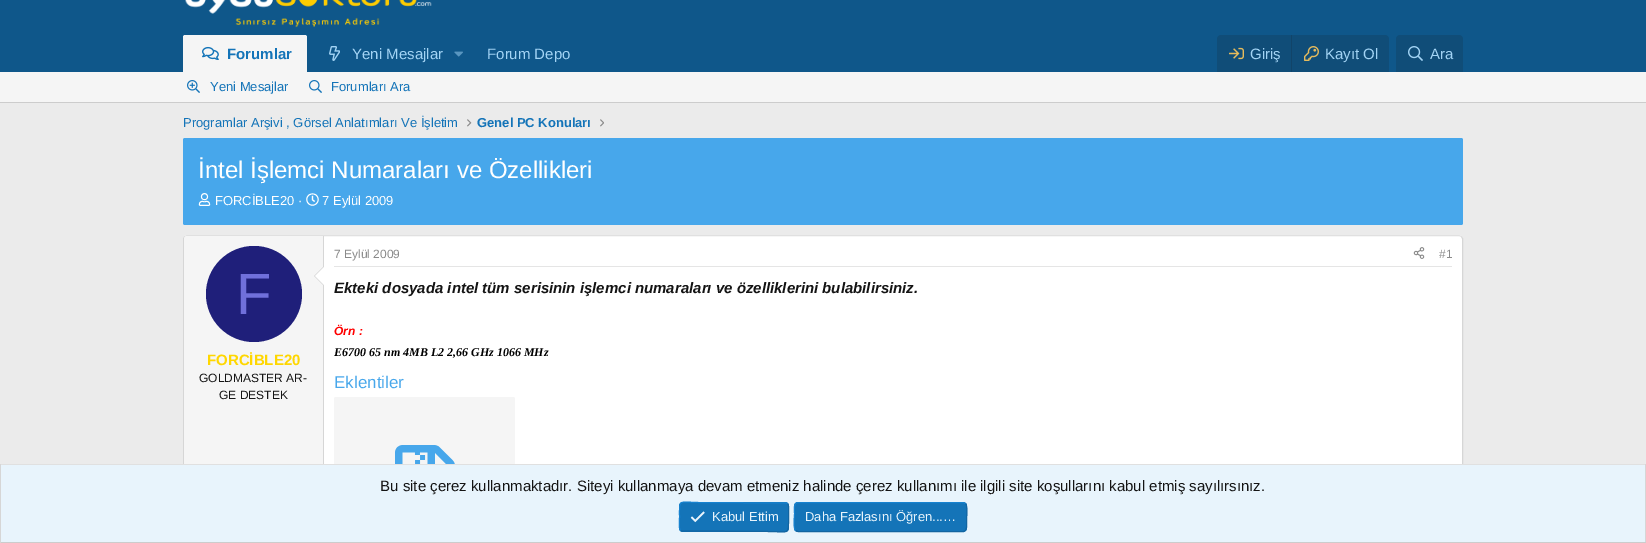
%!PS
<< /PageSize [1646 543] >> setpagedevice
/rgb { 3 { 255 div 3 1 roll } repeat setrgbcolor } def
/font { [ exch dup neg 0 0 3 -1 roll 0 0 ] selectfont } def
/circle { newpath 0 360 arc closepath } def
/roundrect { 5 dict begin { /r /h /w /y /x } { exch def } forall
  x r add y moveto x w add y 2 copy h add r arct x w add y h add x 1 index r arct
  x y h add x y r arct x y 2 copy exch w add exch r arct closepath end } def
/picture { 5 dict begin { /h /w /y /x /name } { exch def } forall
  gsave x y translate w h scale
  w h 8 [w 0 0 h 0 0] name (r) file false 3 colorimage grestore end } def
0 543 translate 1 -1 scale
4 setmiterlimit
235 235 235 rgb
0 0 1646 543 rectfill
15 87 138 rgb
0 0 1646 72 rectfill
(img/1.rgb) 185 0 247 28 picture
245 245 245 rgb
185 35 moveto 305 35 lineto 306 35 307 36 307 37 curveto 307 72 lineto 183 72 lineto 183 37 lineto 183 36 184 35 185 35 curveto closepath fill
(img/2.rgb) 202 46 17 14 picture
(img/3.rgb) 329 46 11 15 picture
(img/4.rgb) 454 51 9 6 picture
16 77 120 rgb
1221 35 moveto 1385 35 lineto 1387 35 1389 37 1389 39 curveto 1389 72 lineto 1217 72 lineto 1217 39 lineto 1217 37 1219 35 1221 35 curveto closepath fill
(img/5.rgb) 1229 47 15 13 picture
17 68 105 rgb
1291 35 1 37 rectfill
(img/6.rgb) 1304 46 15 15 picture
16 77 120 rgb
1400 35 moveto 1459 35 lineto 1461 35 1463 37 1463 39 curveto 1463 72 lineto 1396 72 lineto 1396 39 lineto 1396 37 1398 35 1400 35 curveto closepath fill
(img/7.rgb) 1408 46 15 15 picture
245 245 245 rgb
0 72 1646 30 rectfill
204 204 204 rgb
0 102 1646 1 rectfill
(img/8.rgb) 187 80 13 13 picture
(img/9.rgb) 309 80 13 13 picture
(img/10.rgb) 467 119 5 8 picture
(img/11.rgb) 600 119 4 8 picture
71 167 235 rgb
183 138 1280 87 2 roundrect fill
(img/12.rgb) 198 193 13 13 picture
(img/13.rgb) 306 193 13 13 picture
255 255 255 rgb
183 235 1280 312 4 roundrect fill
224 224 224 rgb
184.5 236.5 moveto 187 235.5 lineto 1459 235.5 lineto 1461.5 236.5 lineto stroke
214 214 214 rgb
1461.5 236.5 moveto 1462.5 238.5 lineto 1462.5 357 lineto 1462.5 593 lineto 1461.5 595.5 lineto stroke
184.5 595.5 moveto 183.5 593 lineto 183.5 238.5 lineto 184.5 236.5 lineto stroke
245 245 245 rgb
187 236 moveto 324 236 lineto 324 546 lineto 187 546 lineto 185.5 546 184 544.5 184 543 curveto 184 239 lineto 184 237.5 185.5 236 187 236 curveto closepath fill
214 214 214 rgb
323 236 1 228 rectfill
31 31 122 rgb
254 294 48 circle fill
214 214 214 rgb
324 266 moveto 324 286 lineto 314 276 lineto closepath fill
255 255 255 rgb
324 267 moveto 324 285 lineto 315 276 lineto closepath fill
229 229 229 rgb
334 266 1118 1 rectfill
(img/14.rgb) 1413 247 12 12 picture
245 245 245 rgb
334 397 181 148 2 roundrect fill
(img/15.rgb) 395 445 60 19 picture
[
  [1 465 1644 77 232 244 252]
  [0 464 1646 1 224 224 224]
  [1645 464 1 79 214 214 214]
  [0 542 1646 1 204 204 204]
  [0 464 1 79 214 214 214]
] { aload pop rgb rectfill } forall
20 116 184 rgb
679 502 110 30 4 roundrect fill
18 101 161 rgb
787.5 503.5 moveto 789.5 505.5 788.5 514 788.5 517 curveto 788.5 536 790 531.5 768 531.5 curveto 681.5 531 lineto 680.5 530.5 lineto stroke
23 130 207 rgb
680.5 530.5 moveto 678.5 528.5 679.5 520 679.5 517 curveto 679.5 498 678 502.5 700 502.5 curveto 786.5 503 lineto 787.5 503.5 lineto stroke
(img/16.rgb) 690 511 15 12 picture
20 116 184 rgb
794 502 173 30 4 roundrect fill
18 101 161 rgb
965.5 503.5 moveto 968 506 966.5 517.5 966.5 520.5 curveto 966.5 523.5 968 531.5 963 531.5 curveto 798 531.5 lineto 795.5 530.5 lineto stroke
23 130 207 rgb
795.5 530.5 moveto 793 528 794.5 516.5 794.5 513.5 curveto 794.5 510.5 793 502.5 798 502.5 curveto 963 502.5 lineto 965.5 503.5 lineto stroke
/LiberationSans-Bold 15 font
20 116 184 rgb
227 59 moveto (Forumlar) show
/LiberationSans-Regular 15 font
163 212 245 rgb
[
  [(Yeni Mesajlar) 352 59]
  [(Forum Depo) 487 59]
  [(Giriş) 1250 59]
  [(Kayıt Ol) 1325 59]
  [(Ara) 1430 59]
] { aload pop moveto show } forall
/LiberationSans-Regular 13 font
20 116 184 rgb
[
  [(Yeni Mesajlar) 210 91]
  [(Forumları Ara) 331 91]
  [(Programlar Arşivi , Görsel Anlatımları Ve İşletim) 183 127]
] { aload pop moveto show } forall
/LiberationSans-Bold 13 font
477 127 moveto (Genel PC Konuları) show
/LiberationSans-Regular 24 font
255 255 255 rgb
198 178 moveto (İntel İşlemci Numaraları ve Özellikleri) show
/LiberationSans-Regular 13 font
215 205 moveto (FORCİBLE20 ·) show
322 205 moveto (7 Eylül 2009) show
/LiberationSans-Regular 58 font
112 112 219 rgb
236 314 moveto (F) show
/LiberationSans-Bold 15 font
255 215 0 rgb
207 365 moveto (FORCİBLE20) show
/LiberationSans-Regular 12 font
20 20 20 rgb
199 382 moveto (GOLDMASTER AR-) show
219 399 moveto (GE DESTEK) show
138 138 138 rgb
334 258 moveto (7 Eylül 2009) show
1439 258 moveto (#1) show
/LiberationSans-BoldItalic 15 font
20 20 20 rgb
334 293 moveto (Ekteki dosyada intel tüm serisinin işlemci numaraları ve özelliklerini bulabilirsiniz.) show
/LiberationSans-BoldItalic 12 font
255 0 0 rgb
334 335 moveto (Örn :) show
/LiberationSerif-BoldItalic 12 font
0 0 0 rgb
334 356 moveto (E6700 65 nm 4MB L2 2,66 GHz 1066 MHz) show
/LiberationSans-Regular 17 font
71 167 235 rgb
334 388 moveto (Eklentiler) show
/LiberationSans-Regular 15 font
20 20 20 rgb
380 491 moveto (Bu site çerez kullanmaktadır. Siteyi kullanmaya devam etmeniz halinde çerez kullanımı ile ilgili site koşullarını kabul etmiş sayılırsınız.) show
/LiberationSans-Regular 13 font
232 244 252 rgb
712 521 moveto (Kabul Ettim) show
805 521 moveto (Daha Fazlasını Öğren...…) show
showpage
